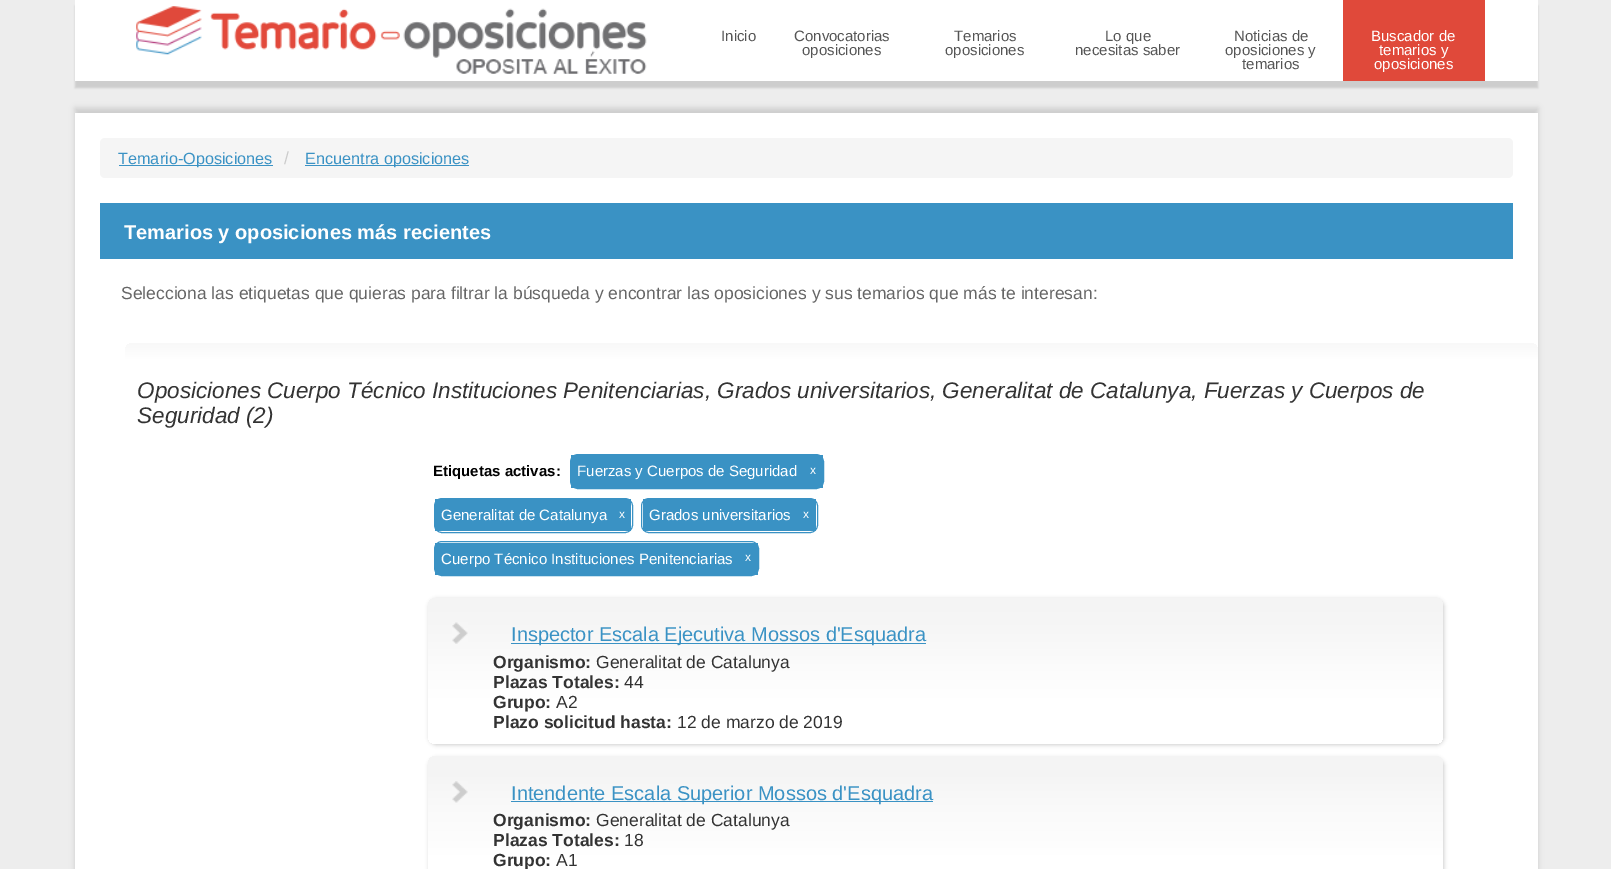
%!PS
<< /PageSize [1611 869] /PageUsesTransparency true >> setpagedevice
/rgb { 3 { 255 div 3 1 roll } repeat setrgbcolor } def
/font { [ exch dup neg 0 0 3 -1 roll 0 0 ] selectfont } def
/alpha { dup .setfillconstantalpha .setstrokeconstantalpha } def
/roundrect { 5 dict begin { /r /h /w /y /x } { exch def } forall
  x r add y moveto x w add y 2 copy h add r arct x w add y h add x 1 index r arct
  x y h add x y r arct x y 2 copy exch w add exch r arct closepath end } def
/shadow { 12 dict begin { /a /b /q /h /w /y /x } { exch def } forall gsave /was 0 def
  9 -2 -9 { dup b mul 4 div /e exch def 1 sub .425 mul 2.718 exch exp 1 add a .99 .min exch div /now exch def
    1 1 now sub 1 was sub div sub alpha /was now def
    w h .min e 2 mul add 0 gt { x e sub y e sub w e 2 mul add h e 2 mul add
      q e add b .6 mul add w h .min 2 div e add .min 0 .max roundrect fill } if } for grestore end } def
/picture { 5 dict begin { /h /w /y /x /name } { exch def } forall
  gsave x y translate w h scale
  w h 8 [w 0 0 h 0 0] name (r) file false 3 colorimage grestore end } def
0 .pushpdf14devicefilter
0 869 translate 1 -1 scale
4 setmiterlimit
237 237 237 rgb
0 0 1611 869 rectfill
204 204 204 rgb
75 6 1463 82 0 1 1 shadow
255 255 255 rgb
75 0 1463 81 rectfill
(img/1.rgb) 136 6 511 68 picture
224 73 58 rgb
1343 0 142 81 rectfill
204 204 204 rgb
75 108 1463 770 0 3 1 shadow
255 255 255 rgb
75 113 1463 756 rectfill
245 245 245 rgb
100 138 1413 40 5 roundrect fill
[
  [119 165 154 1 58 146 196]
  [305 165 164 1 58 146 196]
  [100 203 1413 56 58 146 196]
] { aload pop rgb rectfill } forall
gsave 125 343 1413 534 8 roundrect clip newpath
<< /ShadingType 2 /ColorSpace /DeviceRGB /Coords [831 342 831 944] /Extend [true true] /Function << /FunctionType 3 /Domain [0 1] /Functions [<< /FunctionType 2 /Domain [0 1] /C0 [0.969 0.969 0.969] /C1 [1 1 1] /N 1 >> << /FunctionType 2 /Domain [0 1] /C0 [1 1 1] /C1 [1 1 1] /N 1 >>] /Bounds [0.03] /Encode [0 1 0 1] >> >> shfill grestore
570.5 454.5 253 34 7.5 roundrect stroke
571 455 252 33 rectfill
434.5 498.5 198 34 7.5 roundrect stroke
435 499 196 32 rectfill
641.5 498.5 176 34 7.5 roundrect stroke
643 499 173 32 rectfill
434.5 541.5 324 34 7.5 roundrect stroke
435 543 323 32 rectfill
204 204 204 rgb
429 599 1015 146 8 2 1 shadow
gsave 428 598 1015 146 8 roundrect clip newpath
<< /ShadingType 2 /ColorSpace /DeviceRGB /Coords [935 597 935 744] /Extend [true true] /Function << /FunctionType 3 /Domain [0 1] /Functions [<< /FunctionType 2 /Domain [0 1] /C0 [0.957 0.957 0.957] /C1 [0.957 0.957 0.957] /N 1 >> << /FunctionType 2 /Domain [0 1] /C0 [0.957 0.957 0.957] /C1 [1 1 1] /N 1 >> << /FunctionType 2 /Domain [0 1] /C0 [1 1 1] /C1 [1 1 1] /N 1 >>] /Bounds [0.07 0.69] /Encode [0 1 0 1 0 1] >> >> shfill grestore
(img/2.rgb) 452 622 16 22 picture
58 146 196 rgb
511 643 415 1 rectfill
204 204 204 rgb
429 758 1015 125 8 2 1 shadow
gsave 428 756 1015 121 8 roundrect clip newpath
<< /ShadingType 2 /ColorSpace /DeviceRGB /Coords [935 756 935 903] /Extend [true true] /Function << /FunctionType 3 /Domain [0 1] /Functions [<< /FunctionType 2 /Domain [0 1] /C0 [0.957 0.957 0.957] /C1 [0.957 0.957 0.957] /N 1 >> << /FunctionType 2 /Domain [0 1] /C0 [0.957 0.957 0.957] /C1 [1 1 1] /N 1 >> << /FunctionType 2 /Domain [0 1] /C0 [1 1 1] /C1 [1 1 1] /N 1 >>] /Bounds [0.07 0.69] /Encode [0 1 0 1 0 1] >> >> shfill grestore
(img/3.rgb) 452 781 16 22 picture
58 146 196 rgb
511 801 422 1 rectfill
/LiberationSans-Regular 15 font
85 85 85 rgb
[
  [(Inicio) 721 41]
  [(Convocatorias) 794 41]
  [(oposiciones) 802 55]
  [(Temarios) 954 41]
  [(oposiciones) 945 55]
  [(Lo que) 1105 41]
  [(necesitas saber) 1075 55]
  [(Noticias de) 1234 41]
  [(oposiciones y) 1225 55]
  [(temarios) 1242 69]
] { aload pop moveto show } forall
255 255 255 rgb
[
  [(Buscador de) 1371 41]
  [(temarios y) 1379 55]
  [(oposiciones) 1374 69]
] { aload pop moveto show } forall
/LiberationSans-Regular 16.25 font
58 146 196 rgb
118 164 moveto (Temario-Oposiciones) show
/LiberationSans-Regular 17.5 font
204 204 204 rgb
284 164 moveto (/) show
/LiberationSans-Regular 16.25 font
58 146 196 rgb
305 164 moveto (Encuentra oposiciones) show
/LiberationSans-Bold 20 font
255 255 255 rgb
124 239 moveto (Temarios y oposiciones más recientes) show
/LiberationSans-Regular 17.5 font
102 102 102 rgb
121 299 moveto (Selecciona las etiquetas que quieras para filtrar la búsqueda y encontrar las oposiciones y sus temarios que más te interesan:) show
/LiberationSans-Italic 22.5 font
51 51 51 rgb
137 398 moveto (Oposiciones Cuerpo Técnico Instituciones Penitenciarias, Grados universitarios, Generalitat de Catalunya, Fuerzas y Cuerpos de) show
137 423 moveto (Seguridad \(2\)) show
/LiberationSans-Bold 15 font
0 0 0 rgb
433 476 moveto (Etiquetas activas:) show
/LiberationSans-Regular 15 font
255 255 255 rgb
577 476 moveto (Fuerzas y Cuerpos de Seguridad) show
/LiberationSans-Regular 12 font
810 474 moveto (x) show
/LiberationSans-Regular 15 font
441 520 moveto (Generalitat de Catalunya) show
/LiberationSans-Regular 12 font
619 518 moveto (x) show
/LiberationSans-Regular 15 font
649 520 moveto (Grados universitarios) show
/LiberationSans-Regular 12 font
803 518 moveto (x) show
/LiberationSans-Regular 15 font
441 564 moveto (Cuerpo Técnico Instituciones Penitenciarias) show
/LiberationSans-Regular 12 font
745 561 moveto (x) show
/LiberationSans-Regular 20 font
58 146 196 rgb
511 641 moveto (Inspector Escala Ejecutiva Mossos d'Esquadra) show
/LiberationSans-Bold 17.5 font
51 51 51 rgb
493 668 moveto (Organismo:) show
/LiberationSans-Regular 17.5 font
596 668 moveto (Generalitat de Catalunya) show
/LiberationSans-Bold 17.5 font
493 688 moveto (Plazas Totales:) show
/LiberationSans-Regular 17.5 font
624 688 moveto (44) show
/LiberationSans-Bold 17.5 font
493 708 moveto (Grupo:) show
/LiberationSans-Regular 17.5 font
556 708 moveto (A2) show
/LiberationSans-Bold 17.5 font
493 728 moveto (Plazo solicitud hasta:) show
/LiberationSans-Regular 17.5 font
677 728 moveto (12 de marzo de 2019) show
/LiberationSans-Regular 20 font
58 146 196 rgb
511 800 moveto (Intendente Escala Superior Mossos d'Esquadra) show
/LiberationSans-Bold 17.5 font
51 51 51 rgb
493 826 moveto (Organismo:) show
/LiberationSans-Regular 17.5 font
596 826 moveto (Generalitat de Catalunya) show
/LiberationSans-Bold 17.5 font
493 846 moveto (Plazas Totales:) show
/LiberationSans-Regular 17.5 font
624 846 moveto (18) show
/LiberationSans-Bold 17.5 font
493 866 moveto (Grupo:) show
/LiberationSans-Regular 17.5 font
556 866 moveto (A1) show
.poppdf14devicefilter showpage
